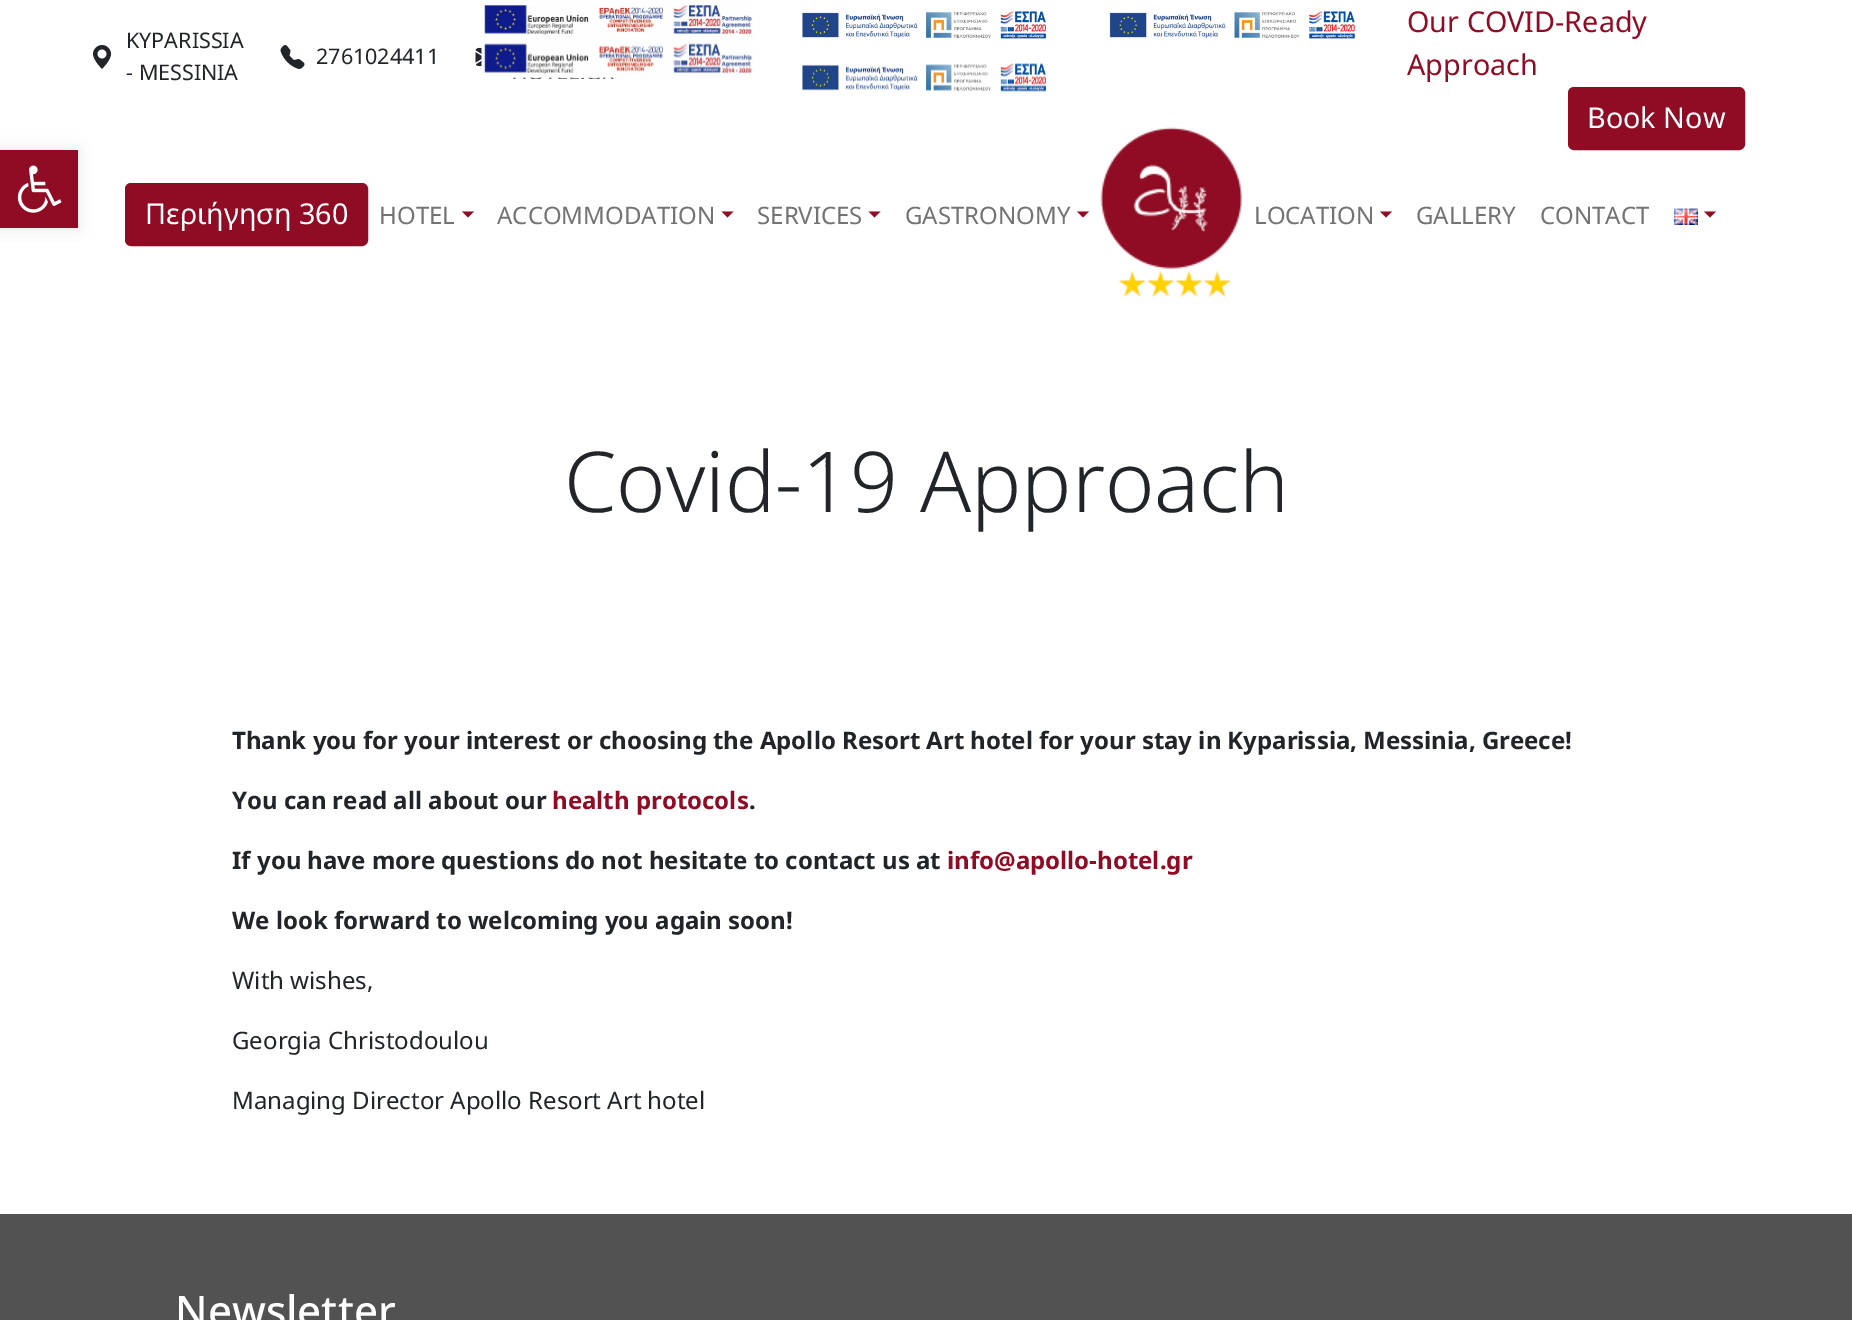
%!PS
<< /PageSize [1852 1320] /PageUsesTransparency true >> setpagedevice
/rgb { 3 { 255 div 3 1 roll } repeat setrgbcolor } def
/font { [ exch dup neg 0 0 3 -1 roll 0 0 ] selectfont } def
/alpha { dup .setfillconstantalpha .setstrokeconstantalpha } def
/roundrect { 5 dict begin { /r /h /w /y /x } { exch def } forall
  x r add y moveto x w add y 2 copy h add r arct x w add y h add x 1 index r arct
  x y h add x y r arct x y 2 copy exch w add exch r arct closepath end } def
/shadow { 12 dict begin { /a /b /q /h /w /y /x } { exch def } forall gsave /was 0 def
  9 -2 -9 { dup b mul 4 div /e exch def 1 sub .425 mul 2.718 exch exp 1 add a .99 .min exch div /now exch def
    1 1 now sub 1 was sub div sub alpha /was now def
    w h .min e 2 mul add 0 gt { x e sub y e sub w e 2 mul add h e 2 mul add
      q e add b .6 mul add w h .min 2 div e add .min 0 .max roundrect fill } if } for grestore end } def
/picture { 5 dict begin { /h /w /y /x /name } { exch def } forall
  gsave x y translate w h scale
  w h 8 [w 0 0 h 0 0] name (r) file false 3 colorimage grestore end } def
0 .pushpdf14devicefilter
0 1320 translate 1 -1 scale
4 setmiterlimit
255 255 255 rgb
0 0 1852 1320 rectfill
0 0 0 rgb
0 150 78 78 0 7.5 0.1 shadow
144 12 36 rgb
0 150 78 78 rectfill
(img/1.rgb) 17 165 45 48 picture
(img/2.rgb) 484 5 269 34 picture
(img/9.rgb) 475 47 7 20 picture
(img/3.rgb) 481 40 272 39 picture
(img/4.rgb) 802 11 244 28 picture
(img/5.rgb) 802 63 244 29 picture
(img/6.rgb) 1109 11 246 28 picture
1569 88 175 61 5 roundrect gsave fill grestore
2 setlinewidth
stroke
(img/7.rgb) 93 45 18 24 picture
(img/8.rgb) 280 45 25 24 picture
126 184 241 61 5 roundrect gsave fill grestore
stroke
462 211.5 moveto 474 211.5 lineto 468 217.5 lineto closepath fill
721.5 211.5 moveto 733.5 211.5 lineto 727.5 217.5 lineto closepath fill
868.5 211.5 moveto 880.5 211.5 lineto 874.5 217.5 lineto closepath fill
1077 211.5 moveto 1089 211.5 lineto 1083 217.5 lineto closepath fill
(img/10.rgb) 1100 127 142 171 picture
1380 211.5 moveto 1392 211.5 lineto 1386 217.5 lineto closepath fill
(img/11.rgb) 1674 208 24 17 picture
1704 211.5 moveto 1716 211.5 lineto 1710 217.5 lineto closepath fill
82 82 82 rgb
0 1214 1852 106 rectfill
/NotoSans-Regular 28.75 font
144 12 36 rgb
1407 32 moveto (Our COVID-Ready) show
1407 75 moveto (Approach) show
255 255 255 rgb
1587 128 moveto (Book Now) show
/NotoSans-Regular 21.5 font
33 37 41 rgb
[
  [(KYPARISSIA) 126 48]
  [(- MESSINIA) 126 80]
  [(2761024411) 316 64]
] { aload pop moveto show } forall
/NotoSans-Regular 28.75 font
255 255 255 rgb
145 224 moveto (Περιήγηση 360) show
/NotoSans-Regular 24 font
115 115 115 rgb
[
  [(HOTEL) 379 224]
  [(ACCOMMODATION) 497 224]
  [(SERVICES) 757 224]
  [(GASTRONOMY) 905 224]
  [(LOCATION) 1254 224]
  [(GALLERY) 1416 224]
  [(CONTACT) 1540 224]
] { aload pop moveto show } forall
/NotoSans-Light 84 font
33 37 41 rgb
564 512 moveto (Covid-19 Approach) show
/NotoSans-Bold 24 font
232 749 moveto (Thank you for your interest or choosing the Apollo Resort Art hotel for your stay in Kyparissia, Messinia, Greece!) show
232 809 moveto (You can read all about our) show
144 12 36 rgb
552 809 moveto (health protocols) show
33 37 41 rgb
749 809 moveto (.) show
232 869 moveto (If you have more questions do not hesitate to contact us at) show
144 12 36 rgb
947 869 moveto (info@apollo-hotel.gr) show
33 37 41 rgb
232 929 moveto (We look forward to welcoming you again soon!) show
/NotoSans-Regular 24 font
[
  [(With wishes,) 232 989]
  [(Georgia Christodoulou) 232 1049]
  [(Managing Director Apollo Resort Art hotel) 232 1109]
] { aload pop moveto show } forall
/NotoSans-Medium 42 font
255 255 255 rgb
175 1326 moveto (Newsletter) show
.poppdf14devicefilter showpage
